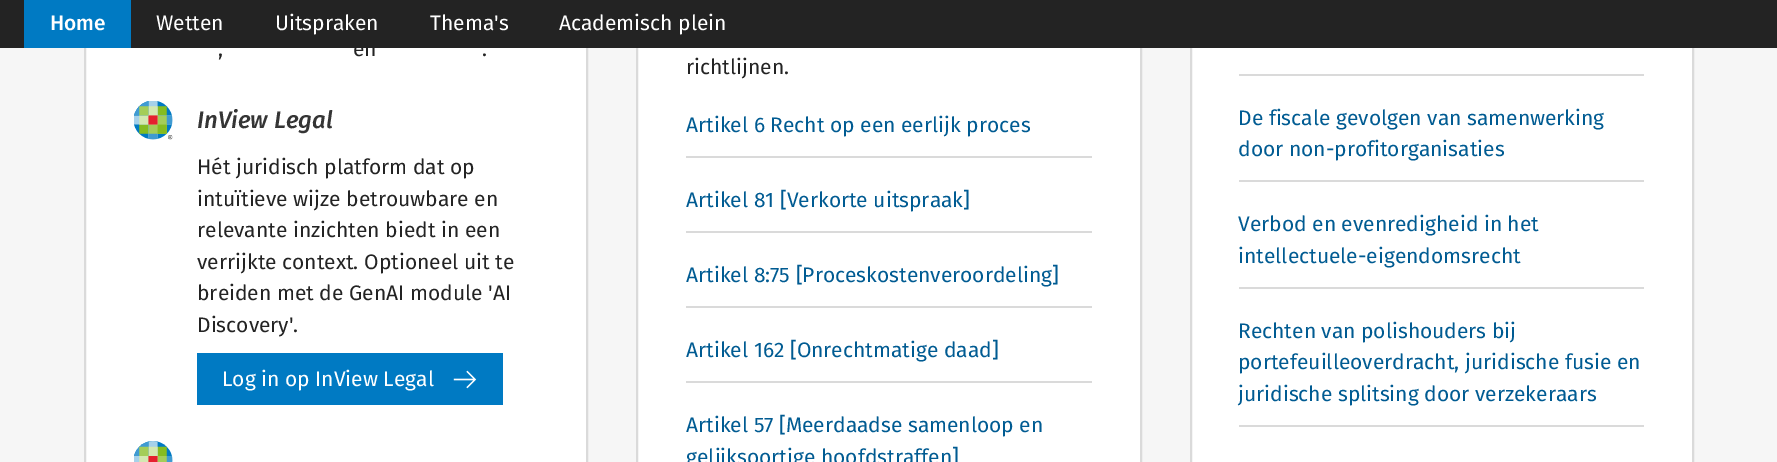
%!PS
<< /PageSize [1777 462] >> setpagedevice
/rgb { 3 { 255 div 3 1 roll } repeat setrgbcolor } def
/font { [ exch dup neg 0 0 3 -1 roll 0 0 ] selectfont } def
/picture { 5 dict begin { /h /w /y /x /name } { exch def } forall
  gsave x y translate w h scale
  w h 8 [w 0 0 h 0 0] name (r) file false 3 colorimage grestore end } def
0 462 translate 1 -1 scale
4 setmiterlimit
246 246 246 rgb
0 0 1777 462 rectfill
255 255 255 rgb
86 48 500 414 rectfill
218 218 218 rgb
2 setlinewidth
85 -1 502 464 rectstroke
255 255 255 rgb
638 48 502 414 rectfill
218 218 218 rgb
637 -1 504 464 rectstroke
255 255 255 rgb
1192 48 500 414 rectfill
218 218 218 rgb
1191 -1 502 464 rectstroke
35 35 35 rgb
0 0 1777 48 rectfill
0 122 195 rgb
24 0 107 48 rectfill
(img/1.rgb) 134 101 39 39 picture
197 353 306 52 rectfill
(img/2.rgb) 453 370 24 19 picture
(img/3.rgb) 134 441 39 21 picture
[
  [686 156 406 2 218 218 218]
  [686 231 406 2 218 218 218]
  [686 306 406 2 218 218 218]
  [686 381 406 2 218 218 218]
  [1239 74 405 2 218 218 218]
  [1239 180 405 2 218 218 218]
  [1239 287 405 2 218 218 218]
  [1239 425 405 2 218 218 218]
] { aload pop rgb rectfill } forall
/FiraSans-Medium 21 font
255 255 255 rgb
50 30 moveto (Home) show
/FiraSans-Regular 21 font
[
  [(Wetten) 156 30]
  [(Uitspraken) 275 30]
  [(Thema's) 430 30]
  [(Academisch plein) 559 30]
] { aload pop moveto show } forall
35 35 35 rgb
[
  [(,) 218 56]
  [(en) 353 56]
  [(.) 482 56]
] { aload pop moveto show } forall
/FiraSans-MediumItalic 24 font
53 53 53 rgb
197 128 moveto (InView Legal) show
/FiraSans-Regular 21 font
35 35 35 rgb
[
  [(Hét juridisch platform dat op) 197 174]
  [(intuïtieve wijze betrouwbare en) 197 206]
  [(relevante inzichten biedt in een) 197 237]
  [(verrijkte context. Optioneel uit te) 197 269]
  [(breiden met de GenAI module 'AI) 197 300]
  [(Discovery'.) 197 332]
] { aload pop moveto show } forall
255 255 255 rgb
222 386 moveto (Log in op InView Legal) show
35 35 35 rgb
686 74 moveto (richtlijnen.) show
0 91 146 rgb
[
  [(Artikel 6 Recht op een eerlijk proces) 686 132]
  [(Artikel 81 [Verkorte uitspraak]) 686 207]
  [(Artikel 8:75 [Proceskostenveroordeling]) 686 282]
  [(Artikel 162 [Onrechtmatige daad]) 686 357]
  [(Artikel 57 [Meerdaadse samenloop en) 686 432]
  [(gelijksoortige hoofdstraffen]) 686 464]
  [(De fiscale gevolgen van samenwerking) 1238 125]
  [(door non-profitorganisaties) 1238 156]
  [(Verbod en evenredigheid in het) 1238 231]
  [(intellectuele-eigendomsrecht) 1238 263]
  [(Rechten van polishouders bij) 1238 338]
  [(portefeuilleoverdracht, juridische fusie en) 1238 369]
  [(juridische splitsing door verzekeraars) 1238 401]
] { aload pop moveto show } forall
showpage
